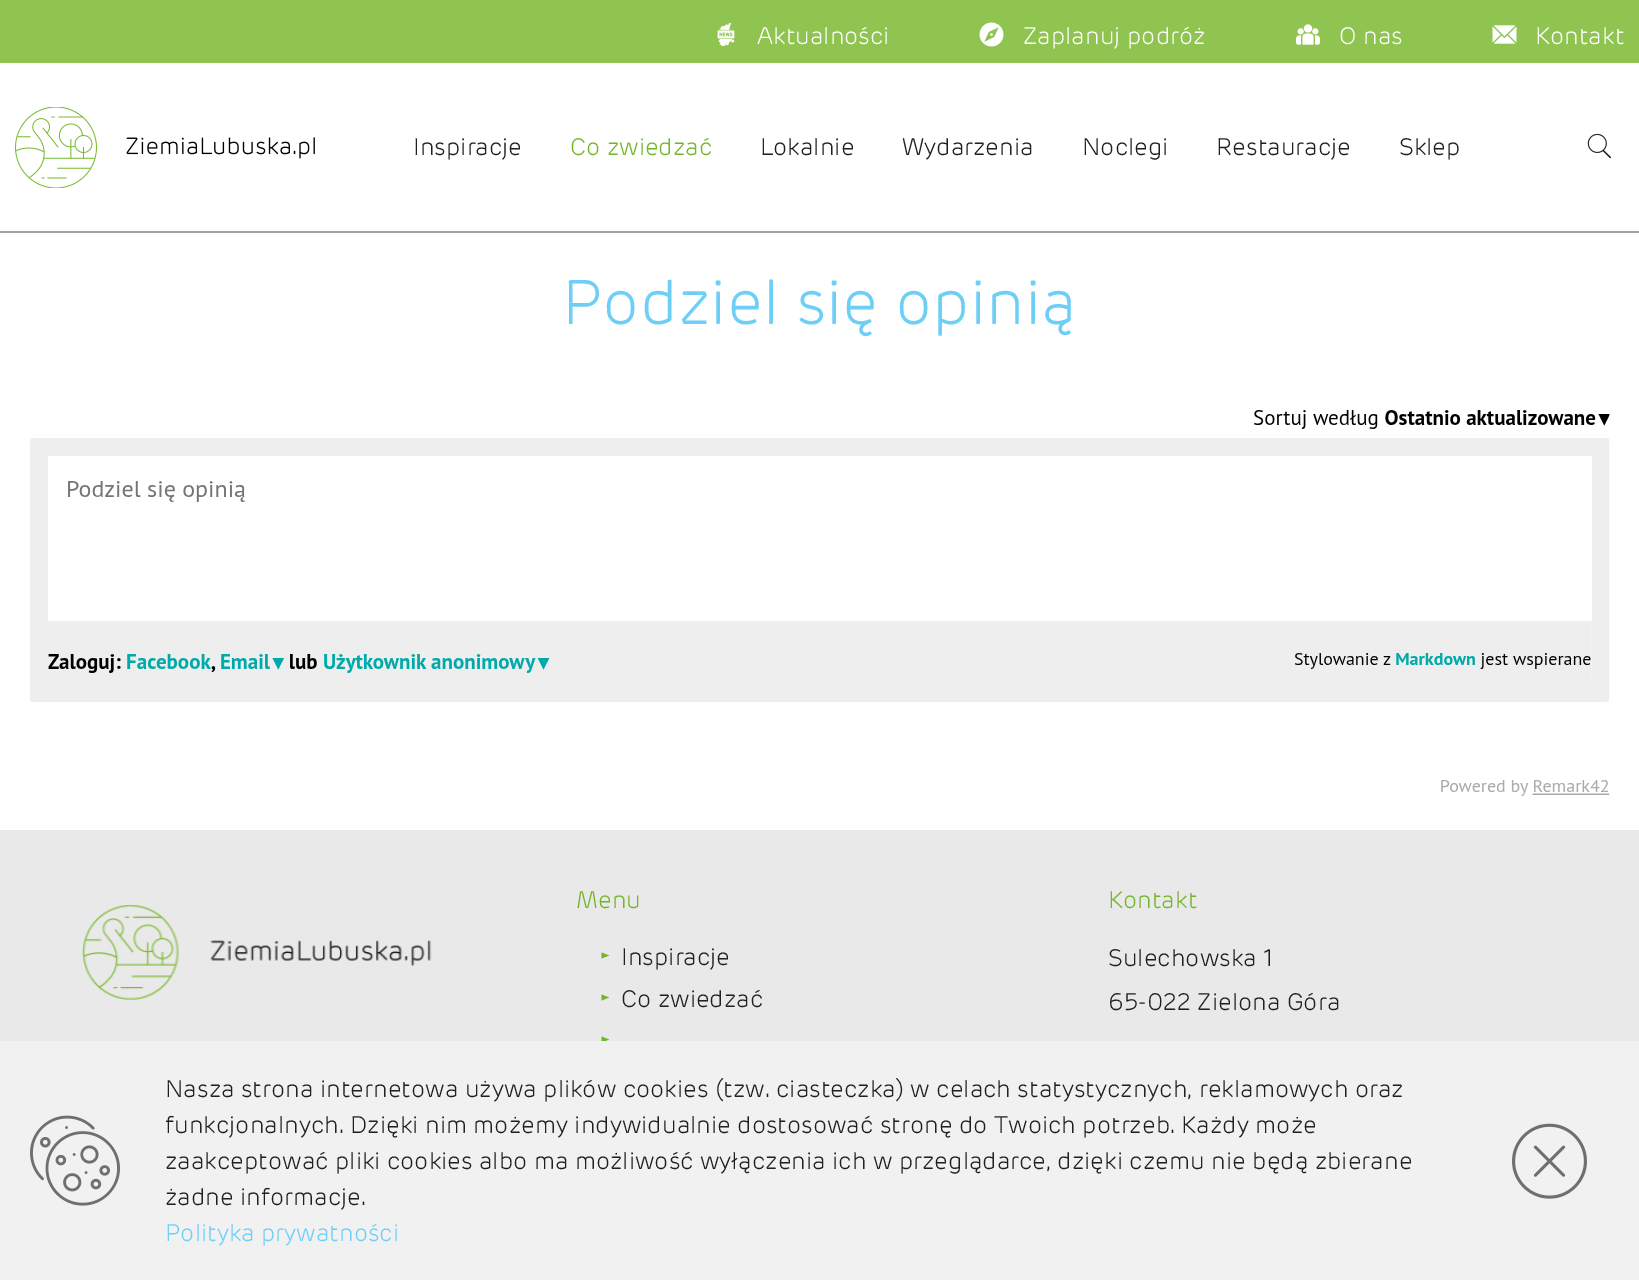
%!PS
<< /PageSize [1639 1280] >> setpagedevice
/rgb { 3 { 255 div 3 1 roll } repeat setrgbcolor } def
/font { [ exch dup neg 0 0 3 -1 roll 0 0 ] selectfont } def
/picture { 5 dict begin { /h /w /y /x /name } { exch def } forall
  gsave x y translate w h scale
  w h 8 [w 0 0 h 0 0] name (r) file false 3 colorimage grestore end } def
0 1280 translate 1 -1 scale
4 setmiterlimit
255 255 255 rgb
0 0 1639 1280 rectfill
143 196 80 rgb
0 0 1639 63 rectfill
(img/1.rgb) 717 22 18 25 picture
(img/2.rgb) 979 22 25 25 picture
(img/3.rgb) 1296 24 24 21 picture
(img/4.rgb) 1492 25 25 19 picture
161 161 161 rgb
0 231 1639 2 rectfill
(img/5.rgb) 15 107 300 81 picture
(img/6.rgb) 1587 133 24 26 picture
(img/7.rgb) 30 410 1580 386 picture
233 233 233 rgb
0 830 1639 211 rectfill
(img/8.rgb) 82 904 350 96 picture
114 182 43 rgb
601.5 958.5 moveto 601.5 952.5 lineto 609 955.5 lineto closepath 601.5 1000.5 moveto 601.5 994.5 lineto 609 997.5 lineto closepath fill
601.5 1042.5 moveto 601.5 1036.5 lineto 609 1039.5 lineto closepath fill
241 241 241 rgb
0 1041 1639 239 rectfill
(img/9.rgb) 30 1115 90 91 picture
(img/10.rgb) 1512 1123 75 76 picture
/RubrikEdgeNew-Light 24 font
255 255 255 rgb
[
  [(Aktualności) 757 44]
  [(Zaplanuj podróż) 1023 44]
  [(O nas) 1339 44]
  [(Kontakt) 1535 44]
] { aload pop moveto show } forall
35 31 32 rgb
413 155 moveto (Inspiracje) show
114 182 43 rgb
570 155 moveto (Co zwiedzać) show
35 31 32 rgb
[
  [(Lokalnie) 760 155]
  [(Wydarzenia) 902 155]
  [(Noclegi) 1082 155]
  [(Restauracje) 1216 155]
  [(Sklep) 1399 155]
] { aload pop moveto show } forall
/RubrikEdgeNew-Light 63 font
109 207 246 rgb
562 324 moveto (Podziel się opinią) show
/RubrikEdgeNew-Light 24 font
114 182 43 rgb
576 908 moveto (Menu) show
35 31 32 rgb
621 965 moveto (Inspiracje) show
621 1007 moveto (Co zwiedzać) show
114 182 43 rgb
1108 908 moveto (Kontakt) show
35 31 32 rgb
[
  [(Sulechowska 1) 1108 966]
  [(65-022 Zielona Góra) 1108 1010]
  [(Nasza strona internetowa używa plików cookies \(tzw. ciasteczka\) w celach statystycznych, reklamowych oraz) 165 1097]
  [(funkcjonalnych. Dzięki nim możemy indywidualnie dostosować stronę do Twoich potrzeb. Każdy może) 165 1133]
  [(zaakceptować pliki cookies albo ma możliwość wyłączenia ich w przeglądarce, dzięki czemu nie będą zbierane) 165 1169]
  [(żadne informacje.) 165 1205]
] { aload pop moveto show } forall
109 207 246 rgb
165 1241 moveto (Polityka prywatności) show
showpage
